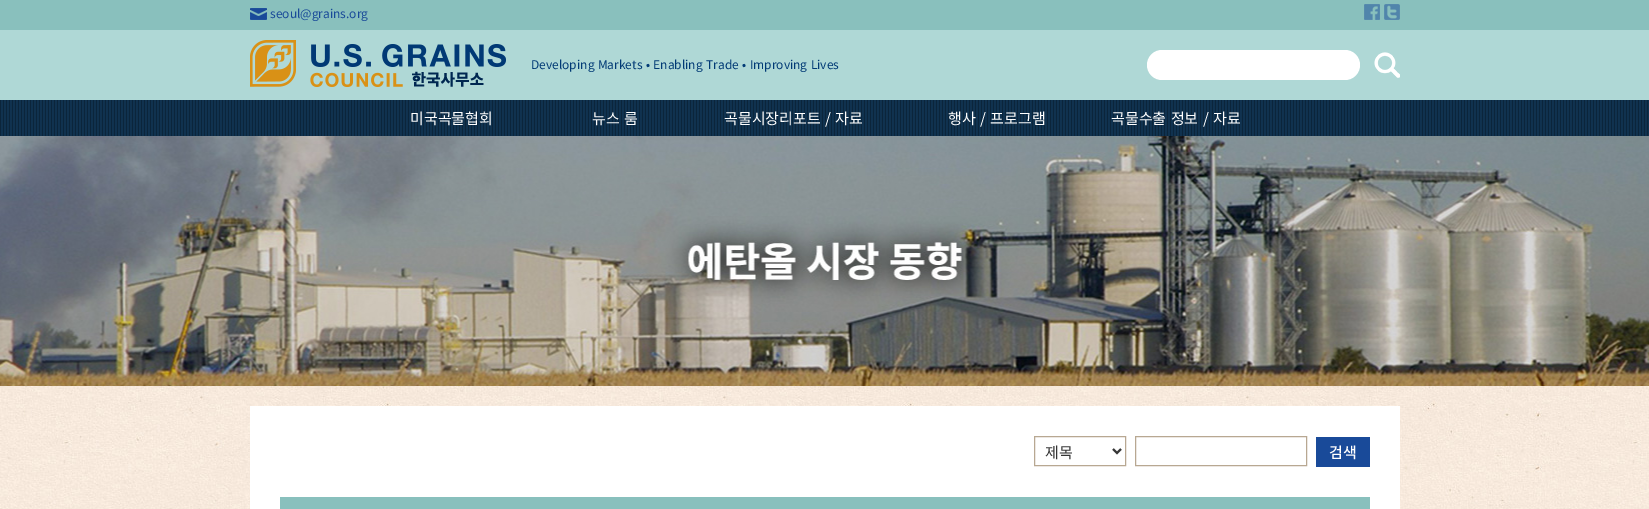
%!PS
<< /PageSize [1649 509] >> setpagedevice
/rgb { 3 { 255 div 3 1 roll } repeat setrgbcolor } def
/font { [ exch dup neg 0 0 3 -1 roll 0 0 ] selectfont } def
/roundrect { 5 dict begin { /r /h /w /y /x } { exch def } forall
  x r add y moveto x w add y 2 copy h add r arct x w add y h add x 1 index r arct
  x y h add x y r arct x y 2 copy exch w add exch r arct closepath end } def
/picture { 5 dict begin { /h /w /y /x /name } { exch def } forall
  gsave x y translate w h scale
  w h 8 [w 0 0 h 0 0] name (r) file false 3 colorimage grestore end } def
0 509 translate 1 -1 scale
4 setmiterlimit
137 192 189 rgb
0 0 1649 509 rectfill
(img/1.rgb) 250 8 17 12 picture
(img/2.rgb) 1364 4 16 16 picture
(img/3.rgb) 1384 4 16 16 picture
175 216 214 rgb
0 30 1649 70 rectfill
(img/4.rgb) 250 40 256 47 picture
255 255 255 rgb
1147 50 213 30 15 roundrect fill
(img/5.rgb) 1374 52 26 26 picture
(img/6.rgb) 0 100 1649 36 picture
(img/7.rgb) 0 386 1649 123 picture
(img/8.rgb) 0 136 1649 250 picture
250 406 1150 103 rectfill
184 168 146 rgb
1034.5 436.5 91 29 rectstroke
54 54 54 rgb
2 setlinewidth
1113 449 moveto 1117 453 lineto 1121 449 lineto stroke
184 168 146 rgb
1 setlinewidth
1135.5 436.5 171 29 rectstroke
25 74 153 rgb
1316 437 54 30 rectfill
137 192 189 rgb
280 497 1090 12 rectfill
/NotoSansKR-Regular 12 font
25 74 153 rgb
270 18 moveto (seoul@grains.org) show
0 57 117 rgb
531 69 moveto 0.75 0 32 (Developing Markets • Enabling Trade • Improving Lives) widthshow
/NotoSansKR-Regular 15 font
255 255 255 rgb
410 124 moveto (미국곡물협회) show
592 124 moveto 1 0 32 (뉴스 룸) widthshow
724 124 moveto 1 0 32 (곡물시장리포트 / 자료) widthshow
948 124 moveto 1 0 32 (행사 / 프로그램) widthshow
1111 124 moveto 1 0 32 (곡물수출 정보 / 자료) widthshow
54 54 54 rgb
1045 458 moveto (제목) show
/NotoSansKR-Medium 15 font
255 255 255 rgb
1329 458 moveto (검색) show
showpage
